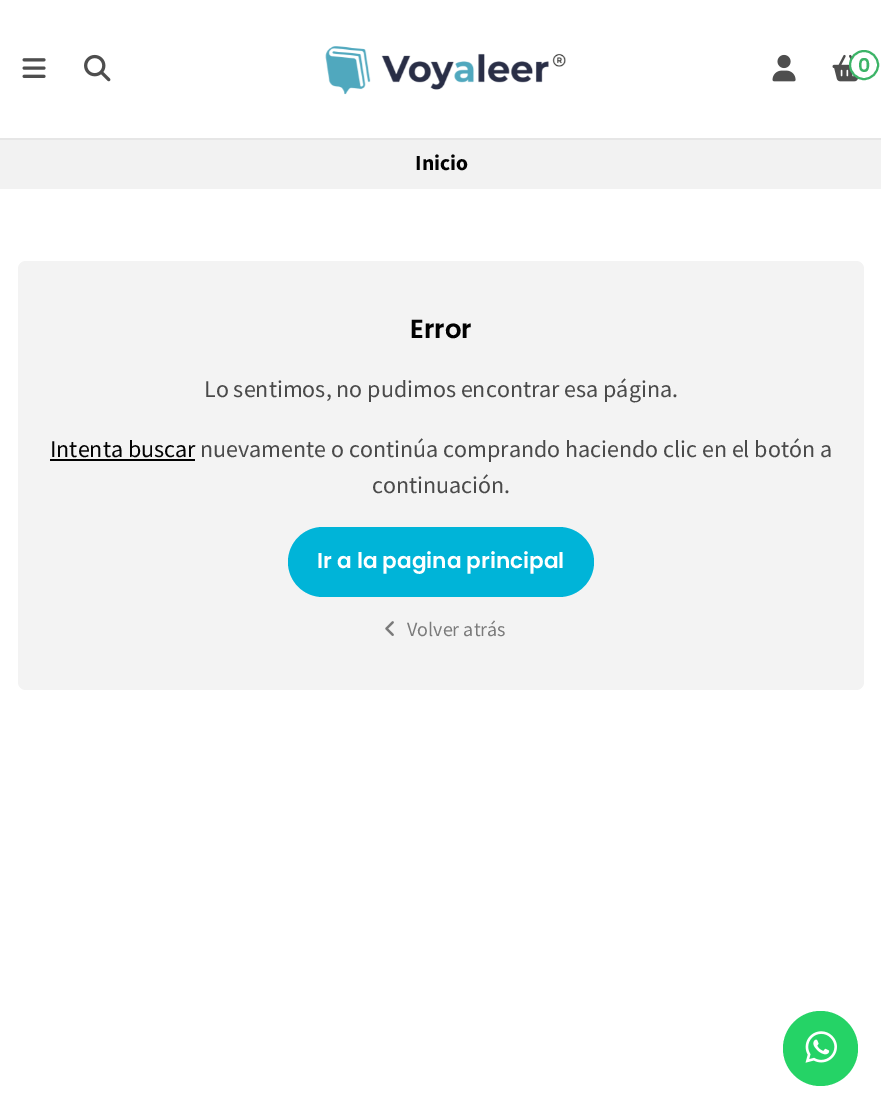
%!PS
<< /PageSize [881 1110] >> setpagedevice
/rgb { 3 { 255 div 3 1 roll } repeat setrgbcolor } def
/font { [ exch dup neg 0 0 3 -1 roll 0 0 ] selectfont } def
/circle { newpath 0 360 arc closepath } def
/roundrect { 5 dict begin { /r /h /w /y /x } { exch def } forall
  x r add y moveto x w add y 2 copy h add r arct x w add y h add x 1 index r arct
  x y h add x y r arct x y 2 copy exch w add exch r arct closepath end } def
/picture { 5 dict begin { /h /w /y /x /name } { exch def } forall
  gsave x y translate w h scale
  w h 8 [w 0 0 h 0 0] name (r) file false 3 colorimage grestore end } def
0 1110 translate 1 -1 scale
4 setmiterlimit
255 255 255 rgb
0 0 881 1110 rectfill
230 230 230 rgb
0 138 881 2 rectfill
(img/1.rgb) 22 58 24 20 picture
(img/2.rgb) 84 54 27 28 picture
(img/3.rgb) 325 46 241 49 picture
(img/4.rgb) 772 54 24 28 picture
(img/5.rgb) 832 54 26 28 picture
255 255 255 rgb
864 65 14 circle gsave fill grestore
60 180 103 rgb
2 setlinewidth
stroke
242 242 242 rgb
0 140 881 49 rectfill
243 243 243 rgb
18 261 846 429 8 roundrect fill
2 2 2 rgb
50 459 145 2 rectfill
0 180 216 rgb
288 527 306 70 35 roundrect fill
(img/6.rgb) 385 621 9 15 picture
37 211 102 rgb
820.5 1048.5 37.5 circle fill
(img/7.rgb) 805 1031 32 32 picture
/Poppins-SemiBold 19 font
60 180 103 rgb
858 72 moveto (0) show
/SourceSansPro-Bold 21.6 font
2 2 2 rgb
415 170 moveto (Inicio) show
/Poppins-SemiBold 26 font
410 338 moveto (Error) show
/SourceSansPro-Regular 24 font
74 74 74 rgb
204 397 moveto (Lo sentimos, no pudimos encontrar esa página.) show
2 2 2 rgb
50 457 moveto (Intenta buscar) show
74 74 74 rgb
200 457 moveto (nuevamente o continúa comprando haciendo clic en el botón a) show
372 493 moveto (continuación.) show
/Poppins-SemiBold 21.6 font
255 255 255 rgb
317 568 moveto (Ir a la pagina principal) show
/SourceSansPro-Regular 20 font
123 123 123 rgb
407 636 moveto (Volver atrás) show
showpage
